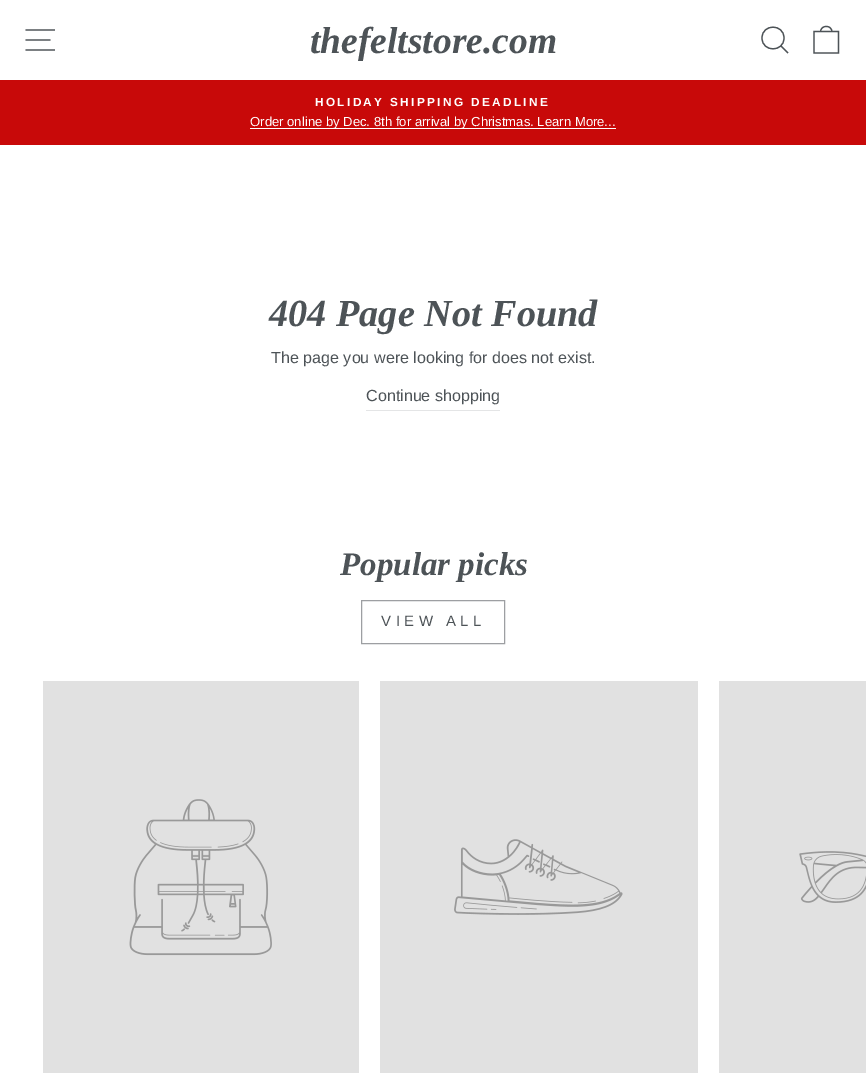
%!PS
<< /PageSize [866 1089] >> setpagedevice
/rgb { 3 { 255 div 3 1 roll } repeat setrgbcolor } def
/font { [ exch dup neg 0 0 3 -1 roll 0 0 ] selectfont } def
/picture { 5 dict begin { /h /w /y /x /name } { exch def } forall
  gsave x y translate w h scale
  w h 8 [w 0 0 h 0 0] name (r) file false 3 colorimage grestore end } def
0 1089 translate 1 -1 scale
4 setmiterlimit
255 255 255 rgb
0 0 866 1089 rectfill
77 83 87 rgb
1.2 setlinewidth
25.5 30 moveto 55 30 lineto 25.5 40 moveto 50.5 40 lineto 25.5 50 moveto 55 50 lineto stroke
784 38 moveto 784 52.5 762 52.5 762 38 curveto 762 23.5 784 23.5 784 38 curveto closepath 788 53 moveto 781 46 lineto stroke
814 31.5 moveto 838.5 31.5 lineto 838.5 53 lineto 814 53 lineto closepath 820.5 32 moveto 820.5 24.5 832 24.5 832 32 curveto stroke
[
  [0 80 866 65 200 9 9]
  [250 128 366 1 255 255 255]
  [366 410 134 1 228 229 230]
] { aload pop rgb rectfill } forall
157 159 162 rgb
1 setlinewidth
361.5 600.5 143 43 rectstroke
225 225 225 rgb
43 681 316 392 rectfill
(img/1.rgb) 129 799 143 157 picture
380 681 318 392 rectfill
(img/2.rgb) 454 839 169 76 picture
719 681 147 392 rectfill
(img/3.rgb) 799 851 67 52 picture
/LiberationSerif-BoldItalic 37.5 font
77 83 87 rgb
310 53 moveto (thefeltstore.com) show
/LiberationSans-Bold 11.8 font
255 255 255 rgb
315 106 moveto 2.35 0 (HOLIDAY SHIPPING DEADLINE) ashow
/LiberationSans-Regular 13.1 font
250 126 moveto (Order online by Dec. 8th for arrival by Christmas. Learn More...) show
/LiberationSerif-BoldItalic 38.25 font
77 83 87 rgb
269 326 moveto (404 Page Not Found) show
/LiberationSans-Regular 16.1 font
271 363 moveto (The page you were looking for does not exist.) show
366 401 moveto (Continue shopping) show
/LiberationSerif-BoldItalic 33 font
340 575 moveto (Popular picks) show
/LiberationSans-Regular 15 font
381 626 moveto 4.5 0 (VIEW ALL) ashow
showpage
